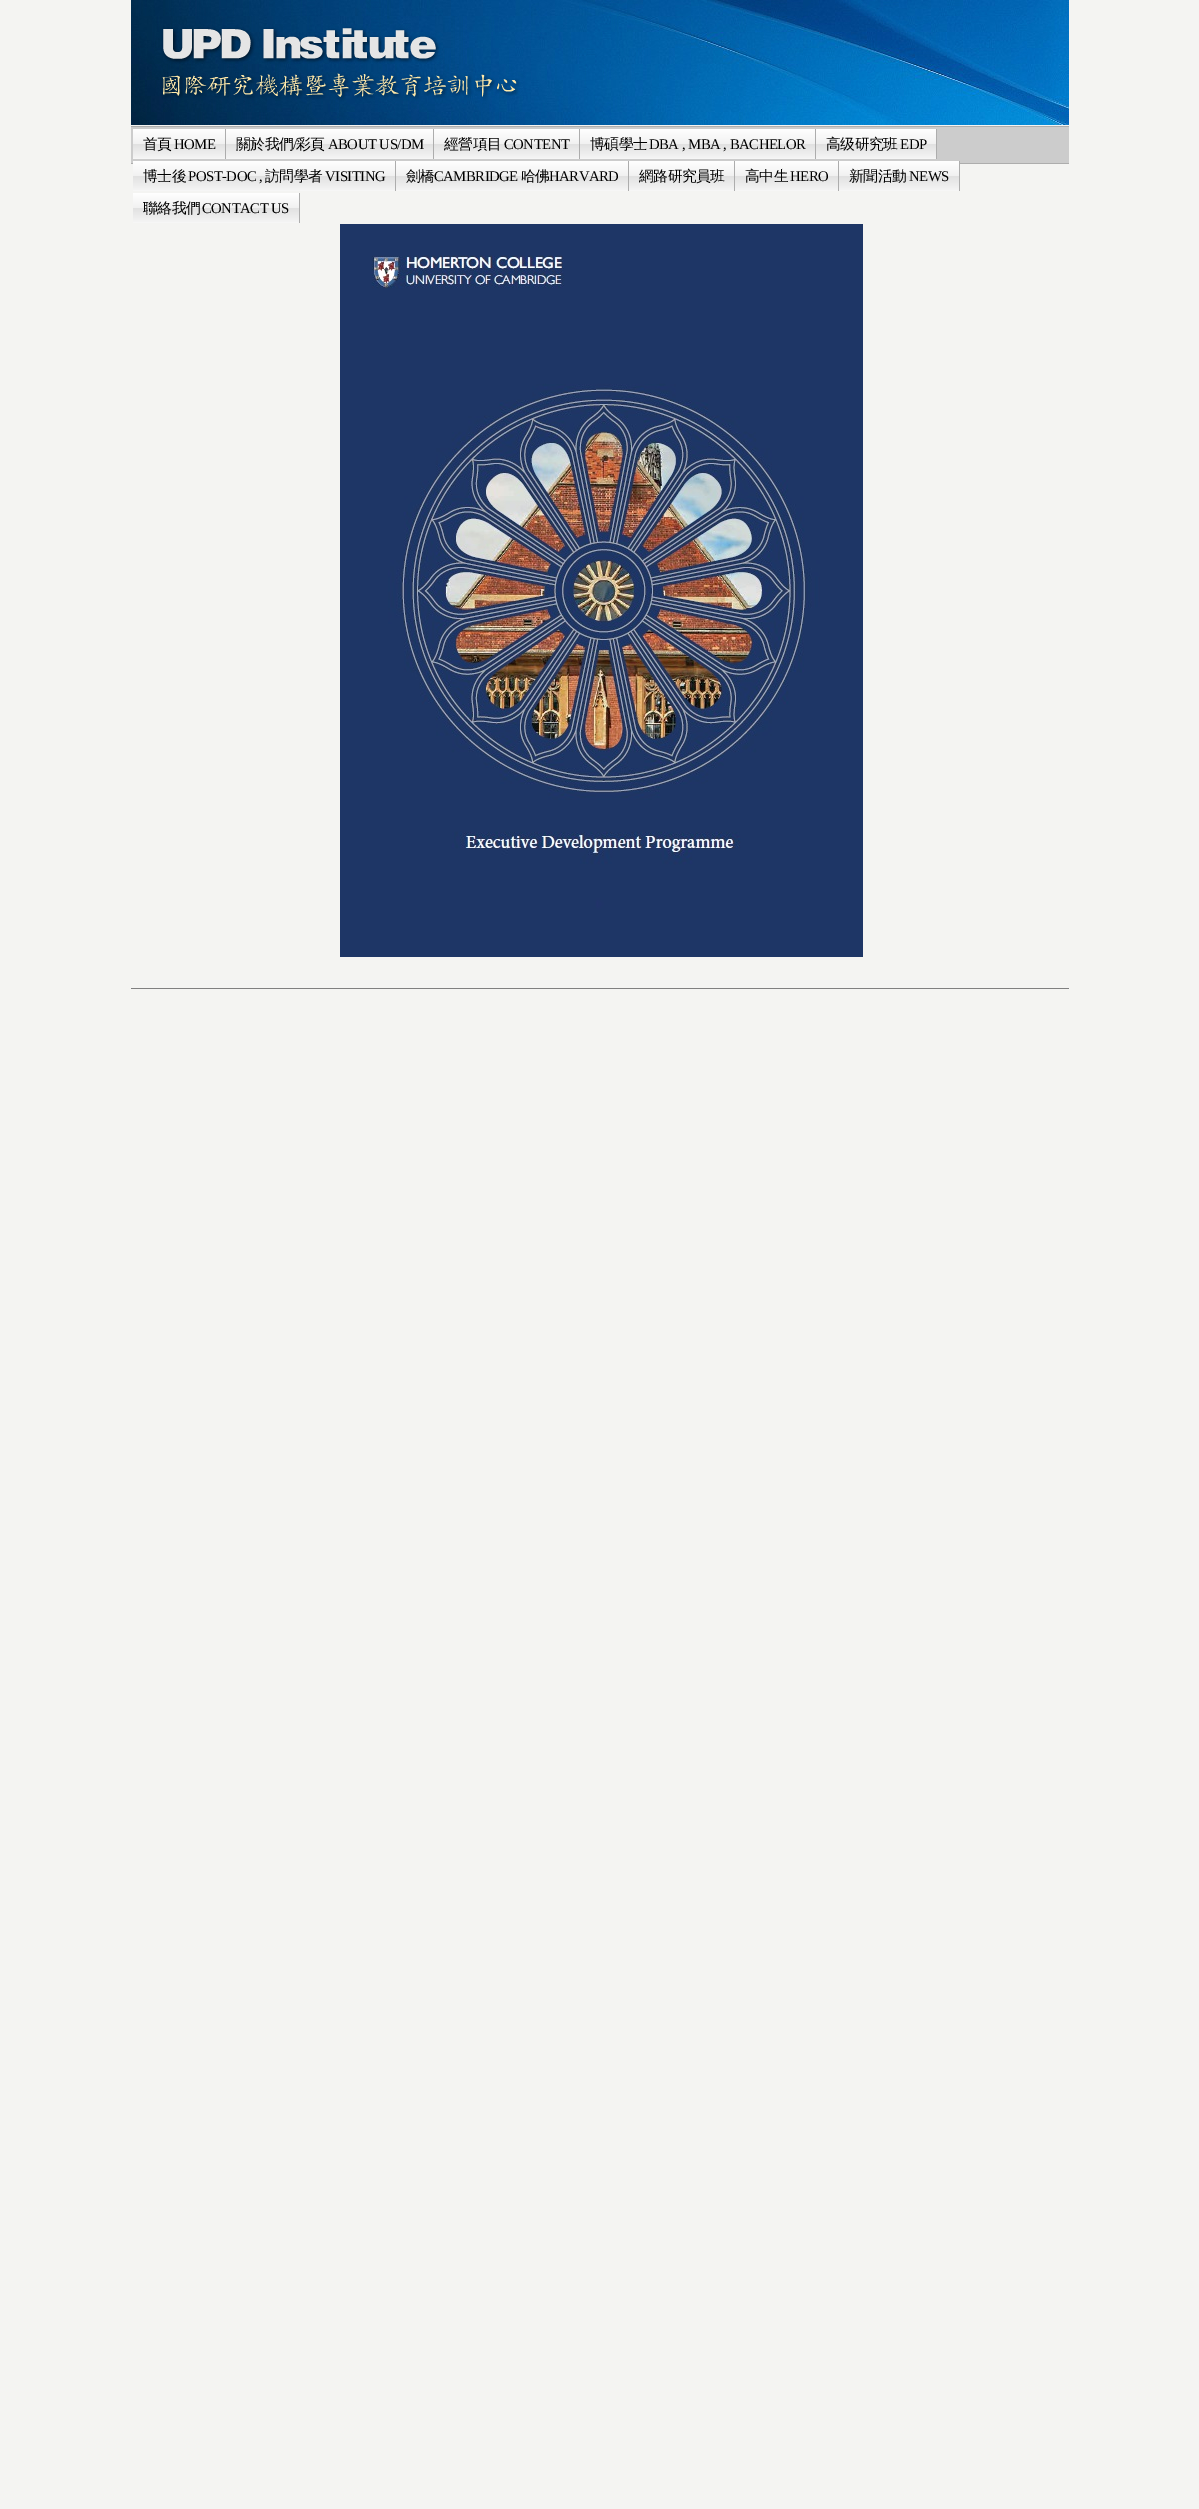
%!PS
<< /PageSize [1199 2509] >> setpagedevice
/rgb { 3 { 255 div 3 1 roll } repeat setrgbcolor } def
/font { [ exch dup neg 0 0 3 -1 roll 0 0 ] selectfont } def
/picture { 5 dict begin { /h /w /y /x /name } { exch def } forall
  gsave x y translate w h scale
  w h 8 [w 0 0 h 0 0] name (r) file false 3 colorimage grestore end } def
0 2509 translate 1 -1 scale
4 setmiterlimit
244 244 242 rgb
0 0 1199 2509 rectfill
(img/1.rgb) 131 0 938 125 picture
[
  [131 127 938 36 204 204 204]
  [131 126 938 1 173 173 173]
  [131 163 938 1 173 173 173]
] { aload pop rgb rectfill } forall
gsave 133 129 moveto 225 129 lineto 225 159 lineto 133 159 lineto closepath clip newpath
<< /ShadingType 2 /ColorSpace /DeviceRGB /Coords [179 129 179 159] /Extend [true true] /Function << /FunctionType 3 /Domain [0 1] /Functions [<< /FunctionType 2 /Domain [0 1] /C0 [1 1 1] /C1 [0.945 0.945 0.945] /N 1 >> << /FunctionType 2 /Domain [0 1] /C0 [0.945 0.945 0.945] /C1 [0.882 0.882 0.882] /N 1 >> << /FunctionType 2 /Domain [0 1] /C0 [0.882 0.882 0.882] /C1 [0.965 0.965 0.965] /N 1 >>] /Bounds [0.5 0.51] /Encode [0 1 0 1 0 1] >> >> shfill grestore
225 129 1 30 rectfill
gsave 226 129 moveto 433 129 lineto 433 159 lineto 226 159 lineto closepath clip newpath
<< /ShadingType 2 /ColorSpace /DeviceRGB /Coords [330 129 330 159] /Extend [true true] /Function << /FunctionType 3 /Domain [0 1] /Functions [<< /FunctionType 2 /Domain [0 1] /C0 [1 1 1] /C1 [0.945 0.945 0.945] /N 1 >> << /FunctionType 2 /Domain [0 1] /C0 [0.945 0.945 0.945] /C1 [0.882 0.882 0.882] /N 1 >> << /FunctionType 2 /Domain [0 1] /C0 [0.882 0.882 0.882] /C1 [0.965 0.965 0.965] /N 1 >>] /Bounds [0.5 0.51] /Encode [0 1 0 1 0 1] >> >> shfill grestore
433 129 1 30 rectfill
gsave 434 129 moveto 579 129 lineto 579 159 lineto 434 159 lineto closepath clip newpath
<< /ShadingType 2 /ColorSpace /DeviceRGB /Coords [507 129 507 159] /Extend [true true] /Function << /FunctionType 3 /Domain [0 1] /Functions [<< /FunctionType 2 /Domain [0 1] /C0 [1 1 1] /C1 [0.945 0.945 0.945] /N 1 >> << /FunctionType 2 /Domain [0 1] /C0 [0.945 0.945 0.945] /C1 [0.882 0.882 0.882] /N 1 >> << /FunctionType 2 /Domain [0 1] /C0 [0.882 0.882 0.882] /C1 [0.965 0.965 0.965] /N 1 >>] /Bounds [0.5 0.51] /Encode [0 1 0 1 0 1] >> >> shfill grestore
579 129 1 30 rectfill
gsave 580 129 moveto 815 129 lineto 815 159 lineto 580 159 lineto closepath clip newpath
<< /ShadingType 2 /ColorSpace /DeviceRGB /Coords [698 129 698 159] /Extend [true true] /Function << /FunctionType 3 /Domain [0 1] /Functions [<< /FunctionType 2 /Domain [0 1] /C0 [1 1 1] /C1 [0.945 0.945 0.945] /N 1 >> << /FunctionType 2 /Domain [0 1] /C0 [0.945 0.945 0.945] /C1 [0.882 0.882 0.882] /N 1 >> << /FunctionType 2 /Domain [0 1] /C0 [0.882 0.882 0.882] /C1 [0.965 0.965 0.965] /N 1 >>] /Bounds [0.5 0.51] /Encode [0 1 0 1 0 1] >> >> shfill grestore
815 129 1 30 rectfill
gsave 816 129 moveto 936 129 lineto 936 159 lineto 816 159 lineto closepath clip newpath
<< /ShadingType 2 /ColorSpace /DeviceRGB /Coords [876 129 876 159] /Extend [true true] /Function << /FunctionType 3 /Domain [0 1] /Functions [<< /FunctionType 2 /Domain [0 1] /C0 [1 1 1] /C1 [0.945 0.945 0.945] /N 1 >> << /FunctionType 2 /Domain [0 1] /C0 [0.945 0.945 0.945] /C1 [0.882 0.882 0.882] /N 1 >> << /FunctionType 2 /Domain [0 1] /C0 [0.882 0.882 0.882] /C1 [0.965 0.965 0.965] /N 1 >>] /Bounds [0.5 0.51] /Encode [0 1 0 1 0 1] >> >> shfill grestore
936 129 1 30 rectfill
gsave 133 161 moveto 395 161 lineto 395 191 lineto 133 191 lineto closepath clip newpath
<< /ShadingType 2 /ColorSpace /DeviceRGB /Coords [264 161 264 191] /Extend [true true] /Function << /FunctionType 3 /Domain [0 1] /Functions [<< /FunctionType 2 /Domain [0 1] /C0 [1 1 1] /C1 [0.945 0.945 0.945] /N 1 >> << /FunctionType 2 /Domain [0 1] /C0 [0.945 0.945 0.945] /C1 [0.882 0.882 0.882] /N 1 >> << /FunctionType 2 /Domain [0 1] /C0 [0.882 0.882 0.882] /C1 [0.965 0.965 0.965] /N 1 >>] /Bounds [0.5 0.51] /Encode [0 1 0 1 0 1] >> >> shfill grestore
395 161 1 30 rectfill
gsave 396 161 moveto 628 161 lineto 628 191 lineto 396 191 lineto closepath clip newpath
<< /ShadingType 2 /ColorSpace /DeviceRGB /Coords [512 161 512 191] /Extend [true true] /Function << /FunctionType 3 /Domain [0 1] /Functions [<< /FunctionType 2 /Domain [0 1] /C0 [1 1 1] /C1 [0.945 0.945 0.945] /N 1 >> << /FunctionType 2 /Domain [0 1] /C0 [0.945 0.945 0.945] /C1 [0.882 0.882 0.882] /N 1 >> << /FunctionType 2 /Domain [0 1] /C0 [0.882 0.882 0.882] /C1 [0.965 0.965 0.965] /N 1 >>] /Bounds [0.5 0.51] /Encode [0 1 0 1 0 1] >> >> shfill grestore
628 161 1 30 rectfill
gsave 629 161 moveto 734 161 lineto 734 191 lineto 629 191 lineto closepath clip newpath
<< /ShadingType 2 /ColorSpace /DeviceRGB /Coords [682 161 682 191] /Extend [true true] /Function << /FunctionType 3 /Domain [0 1] /Functions [<< /FunctionType 2 /Domain [0 1] /C0 [1 1 1] /C1 [0.945 0.945 0.945] /N 1 >> << /FunctionType 2 /Domain [0 1] /C0 [0.945 0.945 0.945] /C1 [0.882 0.882 0.882] /N 1 >> << /FunctionType 2 /Domain [0 1] /C0 [0.882 0.882 0.882] /C1 [0.965 0.965 0.965] /N 1 >>] /Bounds [0.5 0.51] /Encode [0 1 0 1 0 1] >> >> shfill grestore
734 161 1 30 rectfill
gsave 735 161 moveto 838 161 lineto 838 191 lineto 735 191 lineto closepath clip newpath
<< /ShadingType 2 /ColorSpace /DeviceRGB /Coords [787 161 787 191] /Extend [true true] /Function << /FunctionType 3 /Domain [0 1] /Functions [<< /FunctionType 2 /Domain [0 1] /C0 [1 1 1] /C1 [0.945 0.945 0.945] /N 1 >> << /FunctionType 2 /Domain [0 1] /C0 [0.945 0.945 0.945] /C1 [0.882 0.882 0.882] /N 1 >> << /FunctionType 2 /Domain [0 1] /C0 [0.882 0.882 0.882] /C1 [0.965 0.965 0.965] /N 1 >>] /Bounds [0.5 0.51] /Encode [0 1 0 1 0 1] >> >> shfill grestore
838 161 1 30 rectfill
gsave 839 161 moveto 959 161 lineto 959 191 lineto 839 191 lineto closepath clip newpath
<< /ShadingType 2 /ColorSpace /DeviceRGB /Coords [899 161 899 191] /Extend [true true] /Function << /FunctionType 3 /Domain [0 1] /Functions [<< /FunctionType 2 /Domain [0 1] /C0 [1 1 1] /C1 [0.945 0.945 0.945] /N 1 >> << /FunctionType 2 /Domain [0 1] /C0 [0.945 0.945 0.945] /C1 [0.882 0.882 0.882] /N 1 >> << /FunctionType 2 /Domain [0 1] /C0 [0.882 0.882 0.882] /C1 [0.965 0.965 0.965] /N 1 >>] /Bounds [0.5 0.51] /Encode [0 1 0 1 0 1] >> >> shfill grestore
959 161 1 30 rectfill
gsave 133 193 moveto 299 193 lineto 299 223 lineto 133 223 lineto closepath clip newpath
<< /ShadingType 2 /ColorSpace /DeviceRGB /Coords [216 193 216 223] /Extend [true true] /Function << /FunctionType 3 /Domain [0 1] /Functions [<< /FunctionType 2 /Domain [0 1] /C0 [1 1 1] /C1 [0.945 0.945 0.945] /N 1 >> << /FunctionType 2 /Domain [0 1] /C0 [0.945 0.945 0.945] /C1 [0.882 0.882 0.882] /N 1 >> << /FunctionType 2 /Domain [0 1] /C0 [0.882 0.882 0.882] /C1 [0.965 0.965 0.965] /N 1 >>] /Bounds [0.5 0.51] /Encode [0 1 0 1 0 1] >> >> shfill grestore
299 193 1 30 rectfill
128 128 128 rgb
131 988 938 1 rectfill
(img/2.rgb) 340 224 523 733 picture
/WenQuanYiZenHei-Medium 14.75 font
0 0 0 rgb
143 149 moveto -0.5 0 (首頁) ashow
/LiberationSerif-Regular 14.75 font
174 149 moveto -0.5 0 (HOME) ashow
/WenQuanYiZenHei-Medium 14.75 font
236 149 moveto -0.5 0 (關於我們) ashow
/LiberationSerif-Regular 14.75 font
293 149 moveto -0.5 0 (/) ashow
/WenQuanYiZenHei-Medium 14.75 font
296 149 moveto -0.5 0 (彩頁) ashow
/LiberationSerif-Regular 14.75 font
328 149 moveto -0.5 0 (ABOUT US/DM) ashow
/WenQuanYiZenHei-Medium 14.75 font
444 149 moveto -0.5 0 (經營項目) ashow
/LiberationSerif-Regular 14.75 font
504 149 moveto -0.5 0 (CONTENT) ashow
/WenQuanYiZenHei-Medium 14.75 font
590 149 moveto -0.5 0 (博碩學士) ashow
/LiberationSerif-Regular 14.75 font
649 149 moveto -0.5 0 (DBA , MBA , BACHELOR) ashow
/WenQuanYiZenHei-Medium 14.75 font
826 149 moveto -0.5 0 (高级研究班) ashow
/LiberationSerif-Regular 14.75 font
900 149 moveto -0.5 0 (EDP) ashow
/WenQuanYiZenHei-Medium 14.75 font
143 181 moveto -0.5 0 (博士後) ashow
/LiberationSerif-Regular 14.75 font
188 181 moveto -0.5 0 (POST-DOC ,) ashow
/WenQuanYiZenHei-Medium 14.75 font
265 181 moveto -0.5 0 (訪問學者) ashow
/LiberationSerif-Regular 14.75 font
325 181 moveto -0.5 0 (VISITING) ashow
/WenQuanYiZenHei-Medium 14.75 font
406 181 moveto -0.5 0 (劍橋) ashow
/LiberationSerif-Regular 14.75 font
434 181 moveto -0.5 0 (CAMBRIDGE) ashow
/WenQuanYiZenHei-Medium 14.75 font
521 181 moveto -0.5 0 (哈佛) ashow
/LiberationSerif-Regular 14.75 font
549 181 moveto -0.5 0 (HARVARD) ashow
/WenQuanYiZenHei-Medium 14.75 font
639 181 moveto -0.5 0 (網路研究員班) ashow
745 181 moveto -0.5 0 (高中生) ashow
/LiberationSerif-Regular 14.75 font
790 181 moveto -0.5 0 (HERO) ashow
/WenQuanYiZenHei-Medium 14.75 font
849 181 moveto -0.5 0 (新聞活動) ashow
/LiberationSerif-Regular 14.75 font
909 181 moveto -0.5 0 (NEWS) ashow
/WenQuanYiZenHei-Medium 14.75 font
143 213 moveto -0.5 0 (聯絡我們) ashow
/LiberationSerif-Regular 14.75 font
202 213 moveto -0.5 0 (CONTACT US) ashow
showpage
